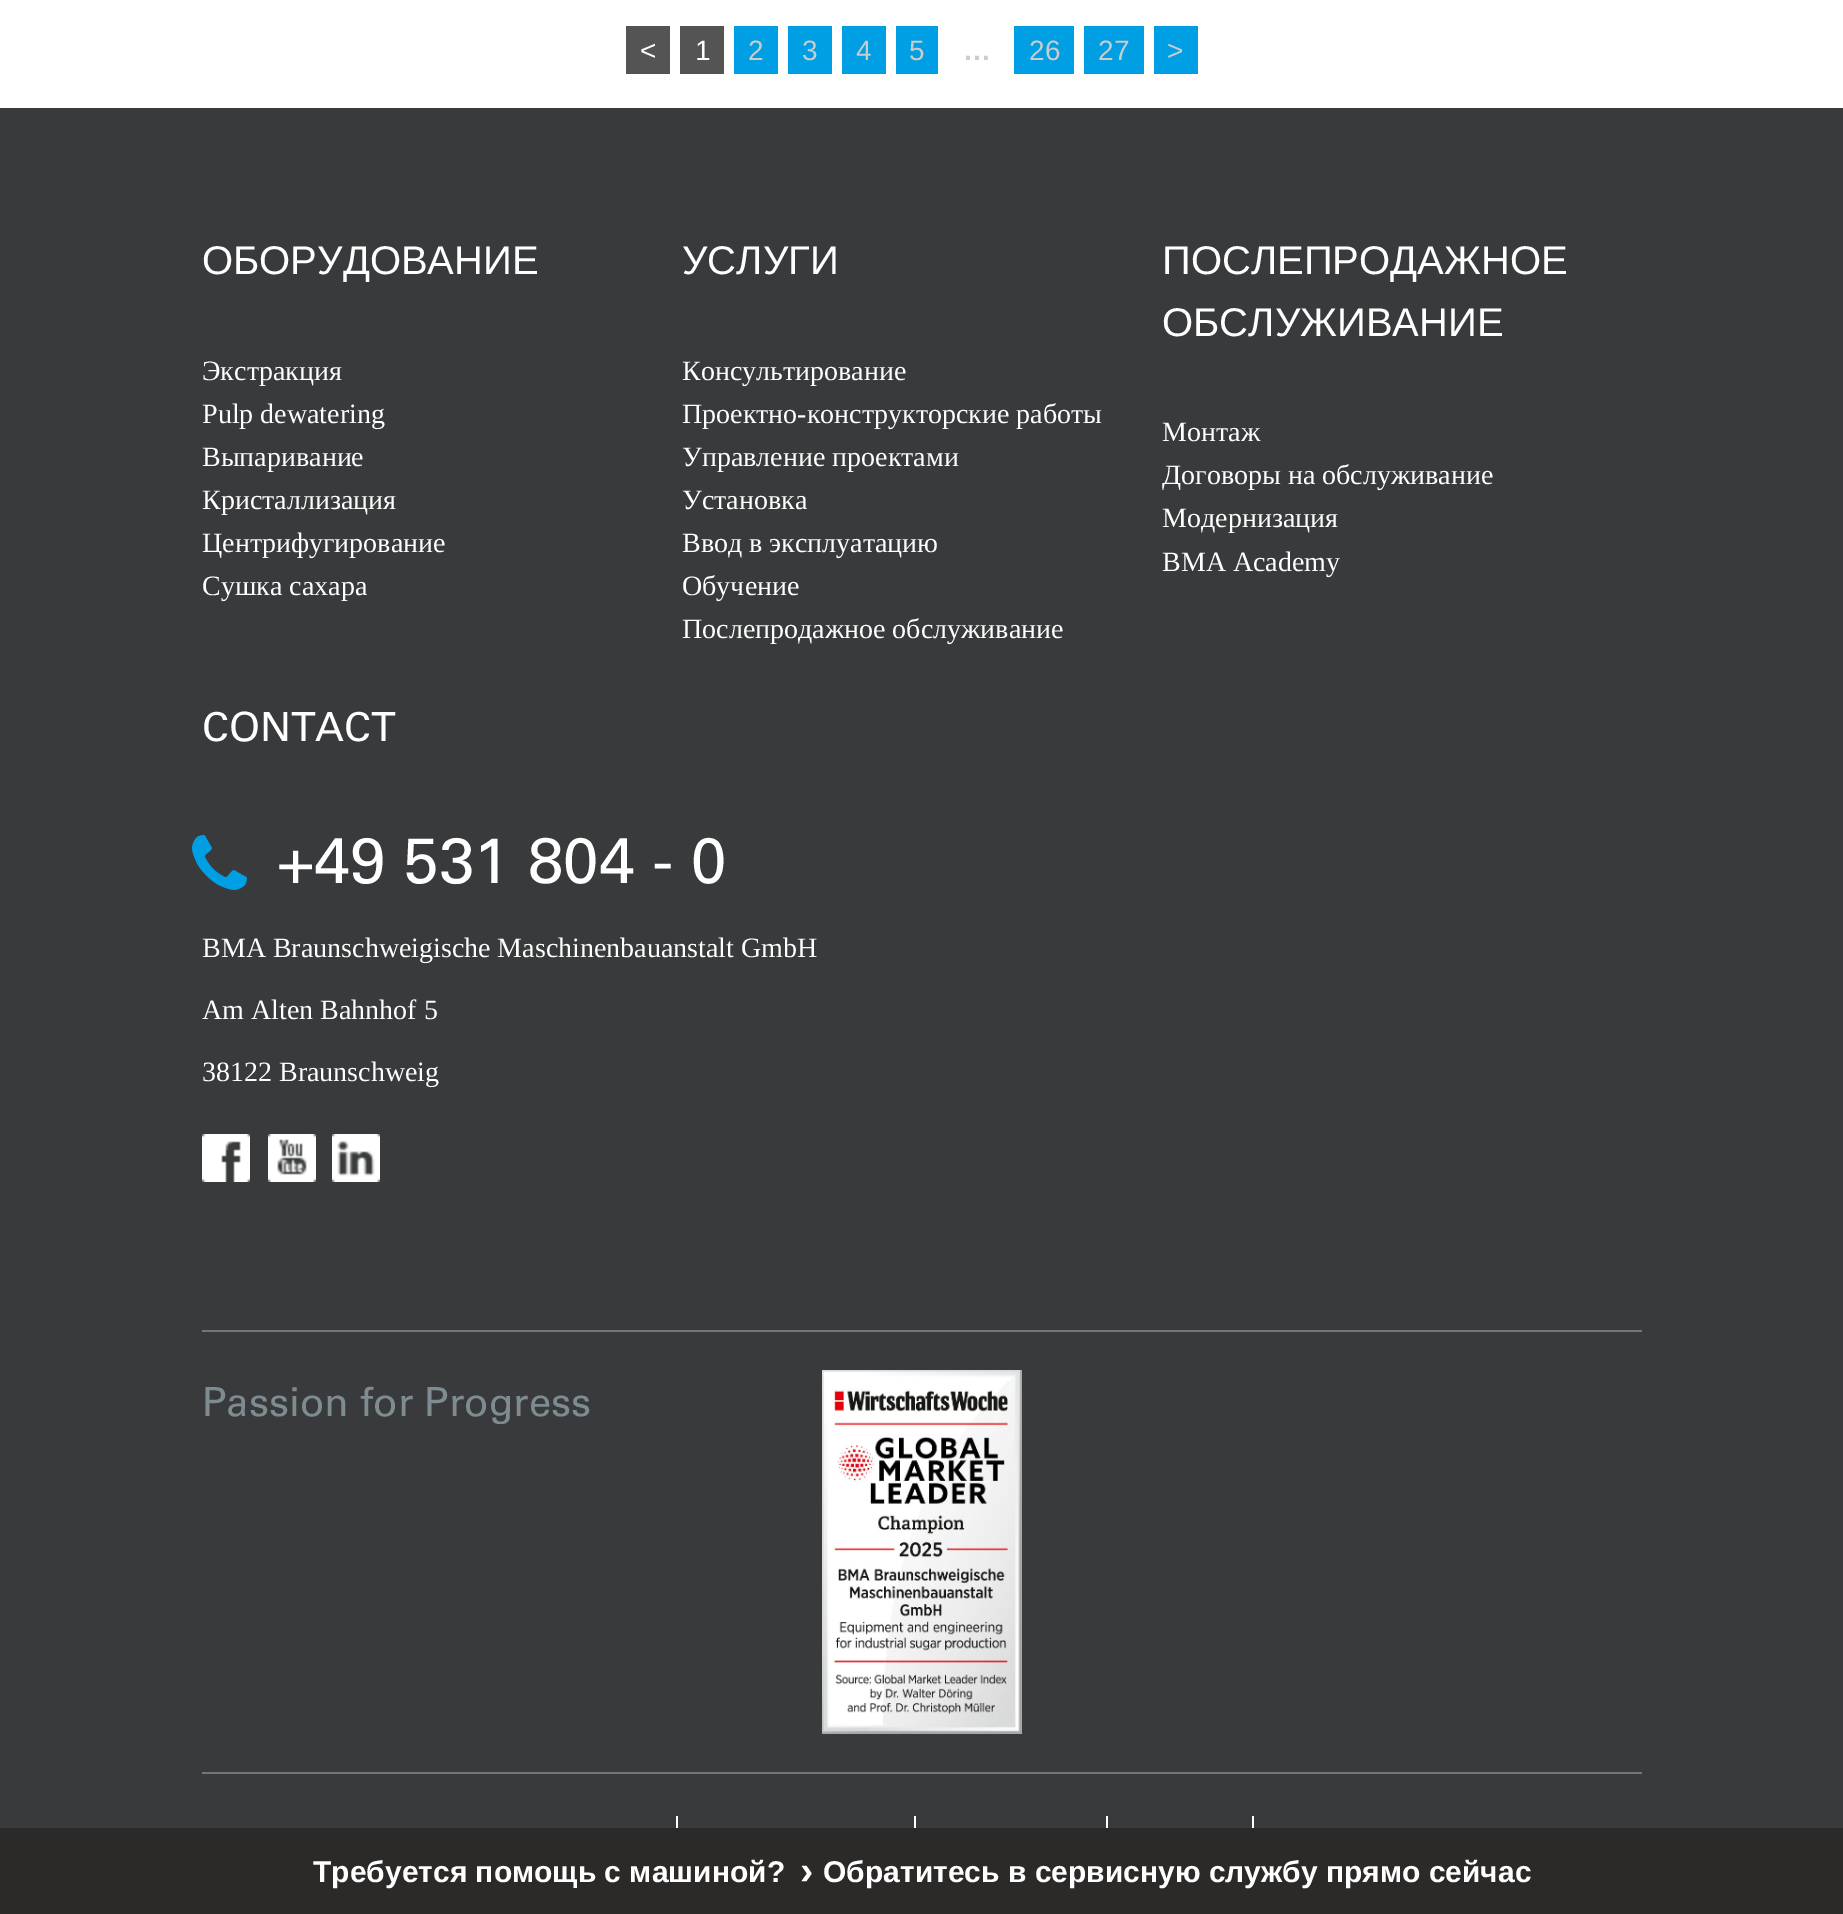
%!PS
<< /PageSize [1843 1914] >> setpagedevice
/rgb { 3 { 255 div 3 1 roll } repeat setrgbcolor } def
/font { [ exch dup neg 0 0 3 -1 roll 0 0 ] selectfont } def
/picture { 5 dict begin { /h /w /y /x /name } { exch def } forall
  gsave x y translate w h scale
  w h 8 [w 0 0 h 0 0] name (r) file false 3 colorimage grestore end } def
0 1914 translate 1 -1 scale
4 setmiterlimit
56 58 59 rgb
0 0 1843 1914 rectfill
[
  [0 0 1843 108 255 255 255]
  [626 26 44 48 84 84 84]
  [680 26 44 48 84 84 84]
  [734 26 44 48 0 159 227]
  [788 26 44 48 0 159 227]
  [842 26 44 48 0 159 227]
  [896 26 42 48 0 159 227]
  [1014 26 60 48 0 159 227]
  [1084 26 60 48 0 159 227]
  [1154 26 44 48 0 159 227]
] { aload pop rgb rectfill } forall
(img/1.rgb) 192 835 55 55 picture
(img/2.rgb) 202 1134 48 48 picture
(img/3.rgb) 268 1134 48 48 picture
(img/4.rgb) 332 1134 48 48 picture
118 118 118 rgb
202 1330 1440 2 rectfill
(img/5.rgb) 822 1370 200 364 picture
[
  [202 1772 1440 2 118 118 118]
  [676 1816 2 12 255 255 255]
  [914 1816 2 12 255 255 255]
  [1106 1816 2 12 255 255 255]
  [1252 1816 2 12 255 255 255]
  [0 1828 1843 86 44 42 41]
] { aload pop rgb rectfill } forall
/LiberationSans-Regular 28 font
255 255 255 rgb
640 60 moveto (<) show
695 60 moveto (1) show
204 204 204 rgb
[
  [(2) 748 60]
  [(3) 802 60]
  [(4) 856 60]
  [(5) 909 60]
] { aload pop moveto show } forall
/LiberationSans-Bold 28 font
963 60 moveto (…) show
/LiberationSans-Regular 28 font
[
  [(26) 1029 60]
  [(27) 1098 60]
  [(>) 1167 60]
] { aload pop moveto show } forall
/LiberationSans-Regular 40 font
255 255 255 rgb
202 274 moveto (ОБОРУДОВАНИЕ) show
/LiberationSerif-Regular 28 font
[
  [(Экстракция) 202 380]
  [(Pulp dewatering) 202 423]
  [(Выпаривание) 202 466]
  [(Кристаллизация) 202 509]
  [(Центрифугирование) 202 552]
  [(Сушка сахара) 202 595]
] { aload pop moveto show } forall
/LiberationSans-Regular 40 font
682 274 moveto (УСЛУГИ) show
/LiberationSerif-Regular 28 font
[
  [(Консультирование) 682 380]
  [(Проектно-конструкторские работы) 682 423]
  [(Управление проектами) 682 466]
  [(Установка) 682 509]
  [(Ввод в эксплуатацию) 682 552]
  [(Обучение) 682 595]
  [(Послепродажное обслуживание) 682 638]
] { aload pop moveto show } forall
/LiberationSans-Regular 40 font
1162 274 moveto (ПОСЛЕПРОДАЖНОЕ) show
1162 336 moveto (ОБСЛУЖИВАНИЕ) show
/LiberationSerif-Regular 28 font
[
  [(Монтаж) 1162 441]
  [(Договоры на обслуживание) 1162 484]
  [(Модернизация) 1162 527]
  [(BMA Academy) 1162 571]
] { aload pop moveto show } forall
/Univers-Regular 40 font
202 741 moveto (CONTACT) show
/Univers-Regular 64 font
277 883 moveto (+49 531 804 - 0) show
/LiberationSerif-Regular 28 font
[
  [(BMA Braunschweigische Maschinenbauanstalt GmbH) 202 957]
  [(Am Alten Bahnhof 5) 202 1019]
  [(38122 Braunschweig) 202 1081]
] { aload pop moveto show } forall
/Univers-Regular 40 font
126 140 145 rgb
202 1416 moveto (Passion for Progress) show
/LiberationSans-Bold 30 font
255 255 255 rgb
313 1882 moveto (Требуется помощь с машиной?) show
/LiberationSans-Bold 40 font
800 1884 moveto (›) show
/LiberationSans-Bold 30 font
823 1882 moveto (Обратитесь в сервисную службу прямо сейчас) show
showpage
